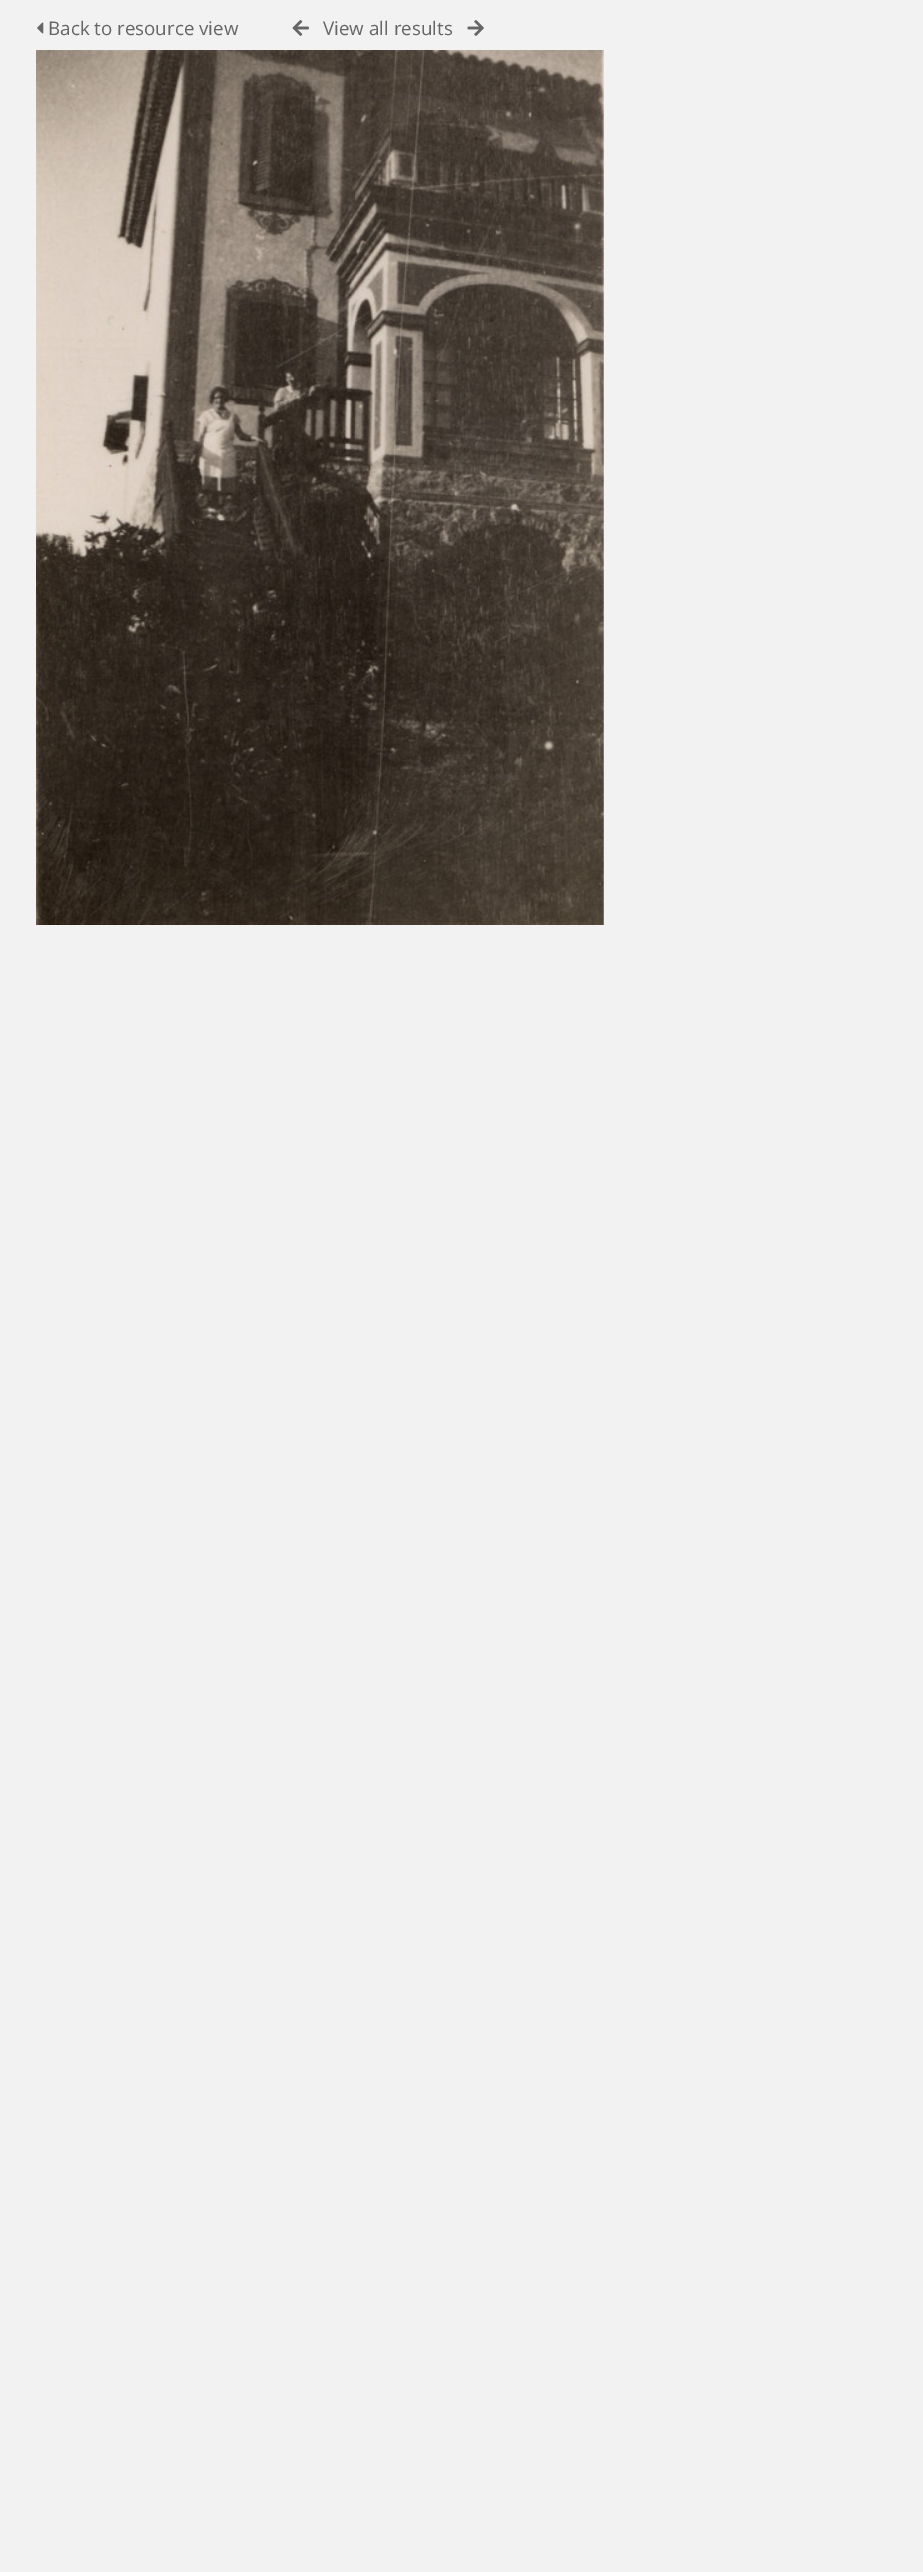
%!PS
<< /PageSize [923 2572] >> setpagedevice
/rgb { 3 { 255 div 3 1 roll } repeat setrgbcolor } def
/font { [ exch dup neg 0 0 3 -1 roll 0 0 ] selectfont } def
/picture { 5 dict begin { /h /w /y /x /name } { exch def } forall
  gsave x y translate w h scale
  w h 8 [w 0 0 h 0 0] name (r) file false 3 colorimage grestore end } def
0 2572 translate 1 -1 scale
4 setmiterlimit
242 242 242 rgb
0 0 923 2572 rectfill
(img/1.rgb) 37 22 7 12 picture
(img/2.rgb) 292 20 17 16 picture
(img/3.rgb) 467 20 17 16 picture
(img/4.rgb) 36 50 568 875 picture
/OpenSans-Regular 18.75 font
102 102 102 rgb
48 35 moveto (Back to resource view) show
323 35 moveto (View all results) show
showpage
